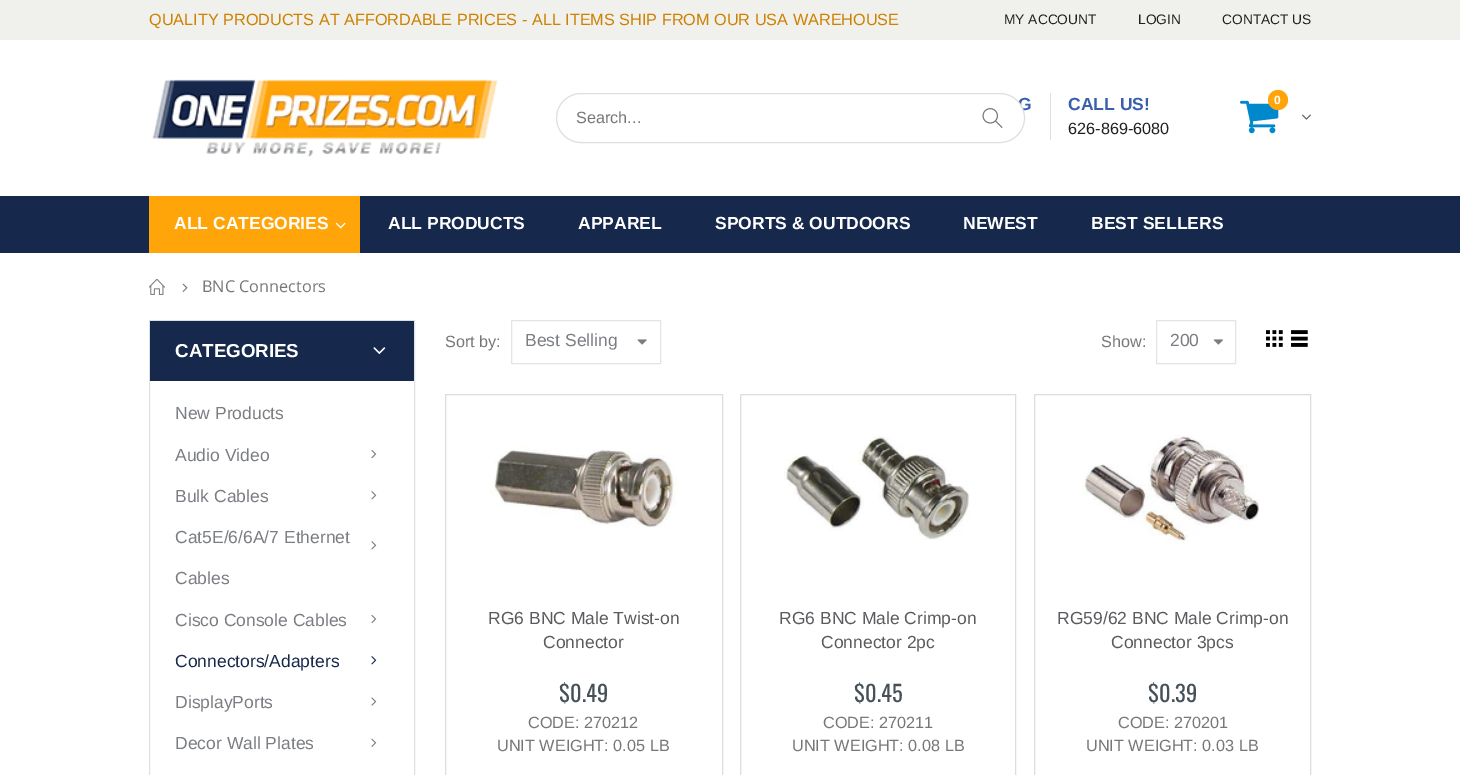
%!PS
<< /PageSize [1460 775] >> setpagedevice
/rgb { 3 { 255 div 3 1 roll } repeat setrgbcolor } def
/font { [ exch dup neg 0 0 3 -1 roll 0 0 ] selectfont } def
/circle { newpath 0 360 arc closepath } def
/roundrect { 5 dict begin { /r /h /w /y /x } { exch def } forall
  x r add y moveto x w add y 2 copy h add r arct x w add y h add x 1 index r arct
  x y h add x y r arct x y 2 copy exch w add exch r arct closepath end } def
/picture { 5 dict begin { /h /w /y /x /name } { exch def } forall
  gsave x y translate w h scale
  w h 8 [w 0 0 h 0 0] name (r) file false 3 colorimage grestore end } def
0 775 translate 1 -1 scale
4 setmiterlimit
255 255 255 rgb
0 0 1460 775 rectfill
240 240 237 rgb
0 0 1460 40 rectfill
(img/1.rgb) 152 79 346 78 picture
221 224 226 rgb
1050 93 1 47 rectfill
(img/3.rgb) 1240 100 39 34 picture
255 164 9 rgb
1278 100 10 circle fill
(img/4.rgb) 1302 114 9 6 picture
22 40 76 rgb
0 196 1460 57 rectfill
255 164 9 rgb
149 196 211 57 rectfill
(img/5.rgb) 335 222 11 7 picture
(img/6.rgb) 149 279 16 16 picture
(img/7.rgb) 182 283 6 9 picture
218 226 230 rgb
149.5 320.5 265 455 rectstroke
22 40 76 rgb
150 321 264 60 rectfill
(img/8.rgb) 373 347 13 7 picture
(img/9.rgb) 371 450 6 9 picture
(img/10.rgb) 371 491 6 9 picture
(img/10.rgb) 371 541 6 9 picture
(img/9.rgb) 371 615 6 9 picture
(img/11.rgb) 371 656 6 9 picture
(img/12.rgb) 371 697 6 9 picture
(img/13.rgb) 371 738 6 9 picture
228 228 228 rgb
511.5 320.5 149 43 rectstroke
(img/14.rgb) 637 339 10 6 picture
1156.5 320.5 79 43 rectstroke
(img/15.rgb) 1213 339 10 6 picture
(img/16.rgb) 1266 330 17 17 picture
(img/17.rgb) 1291 330 17 17 picture
221 221 221 rgb
445.5 394.5 277 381 rectstroke
(img/18.rgb) 490 445 188 83 picture
740.5 394.5 275 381 rectstroke
(img/19.rgb) 784 435 187 106 picture
1034.5 394.5 276 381 rectstroke
(img/20.rgb) 1082 435 177 110 picture
/LiberationSans-Regular 16.25 font
205 129 0 rgb
149 25 moveto (QUALITY PRODUCTS AT AFFORDABLE PRICES - ALL ITEMS SHIP FROM OUR USA WAREHOUSE) show
/LiberationSans-Regular 13.75 font
33 33 33 rgb
[
  [(MY ACCOUNT) 1004 24]
  [(LOGIN) 1138 24]
  [(CONTACT US) 1222 24]
] { aload pop moveto show } forall
/LiberationSans-Bold 17.5 font
57 96 172 rgb
1018 110 moveto (G) show
255 255 255 rgb
556.5 93.5 468 49 24.5 roundrect gsave fill grestore
219 224 226 rgb
stroke
(img/2.rgb) 982 108 21 20 picture
/LiberationSans-Regular 16.25 font
119 119 119 rgb
576 123 moveto (Search...) show
/LiberationSans-Bold 17.5 font
57 96 172 rgb
1068 110 moveto (CALL US!) show
/LiberationSans-Regular 16.25 font
33 33 33 rgb
1068 134 moveto (626-869-6080) show
/LiberationSans-Bold 12 font
255 255 255 rgb
1274 104 moveto (0) show
/LiberationSans-Bold 17.5 font
[
  [(ALL CATEGORIES) 174 229]
  [(ALL PRODUCTS) 388 229]
  [(APPAREL) 578 229]
  [(SPORTS & OUTDOORS) 715 229]
  [(NEWEST) 963 229]
  [(BEST SELLERS) 1091 229]
] { aload pop moveto show } forall
/OpenSans-Regular 16.25 font
119 119 119 rgb
202 292 moveto (BNC Connectors) show
/LiberationSans-Bold 18.75 font
255 255 255 rgb
175 357 moveto (CATEGORIES) show
/LiberationSans-Regular 17.5 font
122 125 130 rgb
[
  [(New Products) 175 419]
  [(Audio Video) 175 461]
  [(Bulk Cables) 175 502]
  [(Cat5E/6/6A/7 Ethernet) 175 543]
  [(Cables) 175 584]
  [(Cisco Console Cables) 175 626]
] { aload pop moveto show } forall
22 40 76 rgb
175 667 moveto (Connectors/Adapters) show
122 125 130 rgb
175 708 moveto (DisplayPorts) show
175 749 moveto (Decor Wall Plates) show
/LiberationSans-Regular 16.25 font
119 119 119 rgb
445 347 moveto (Sort by:) show
/LiberationSans-Regular 17.5 font
122 125 130 rgb
525 346 moveto (Best Selling) show
/LiberationSans-Regular 16.25 font
119 119 119 rgb
1101 347 moveto (Show:) show
/LiberationSans-Regular 17.5 font
122 125 130 rgb
1170 346 moveto (200) show
91 91 95 rgb
488 624 moveto (RG6 BNC Male Twist-on) show
543 648 moveto (Connector) show
/Oswald-Regular 22.5 font
70 81 87 rgb
559 702 moveto ($0.49) show
/LiberationSans-Regular 16.25 font
119 119 119 rgb
528 728 moveto (CODE: 270212) show
497 751 moveto (UNIT WEIGHT: 0.05 LB) show
/LiberationSans-Regular 17.5 font
91 91 95 rgb
779 624 moveto (RG6 BNC Male Crimp-on) show
821 648 moveto (Connector 2pc) show
/Oswald-Regular 22.5 font
70 81 87 rgb
854 702 moveto ($0.45) show
/LiberationSans-Regular 16.25 font
119 119 119 rgb
823 728 moveto (CODE: 270211) show
792 751 moveto (UNIT WEIGHT: 0.08 LB) show
/LiberationSans-Regular 17.5 font
91 91 95 rgb
1057 624 moveto (RG59/62 BNC Male Crimp-on) show
1111 648 moveto (Connector 3pcs) show
/Oswald-Regular 22.5 font
70 81 87 rgb
1148 702 moveto ($0.39) show
/LiberationSans-Regular 16.25 font
119 119 119 rgb
1118 728 moveto (CODE: 270201) show
1086 751 moveto (UNIT WEIGHT: 0.03 LB) show
showpage
